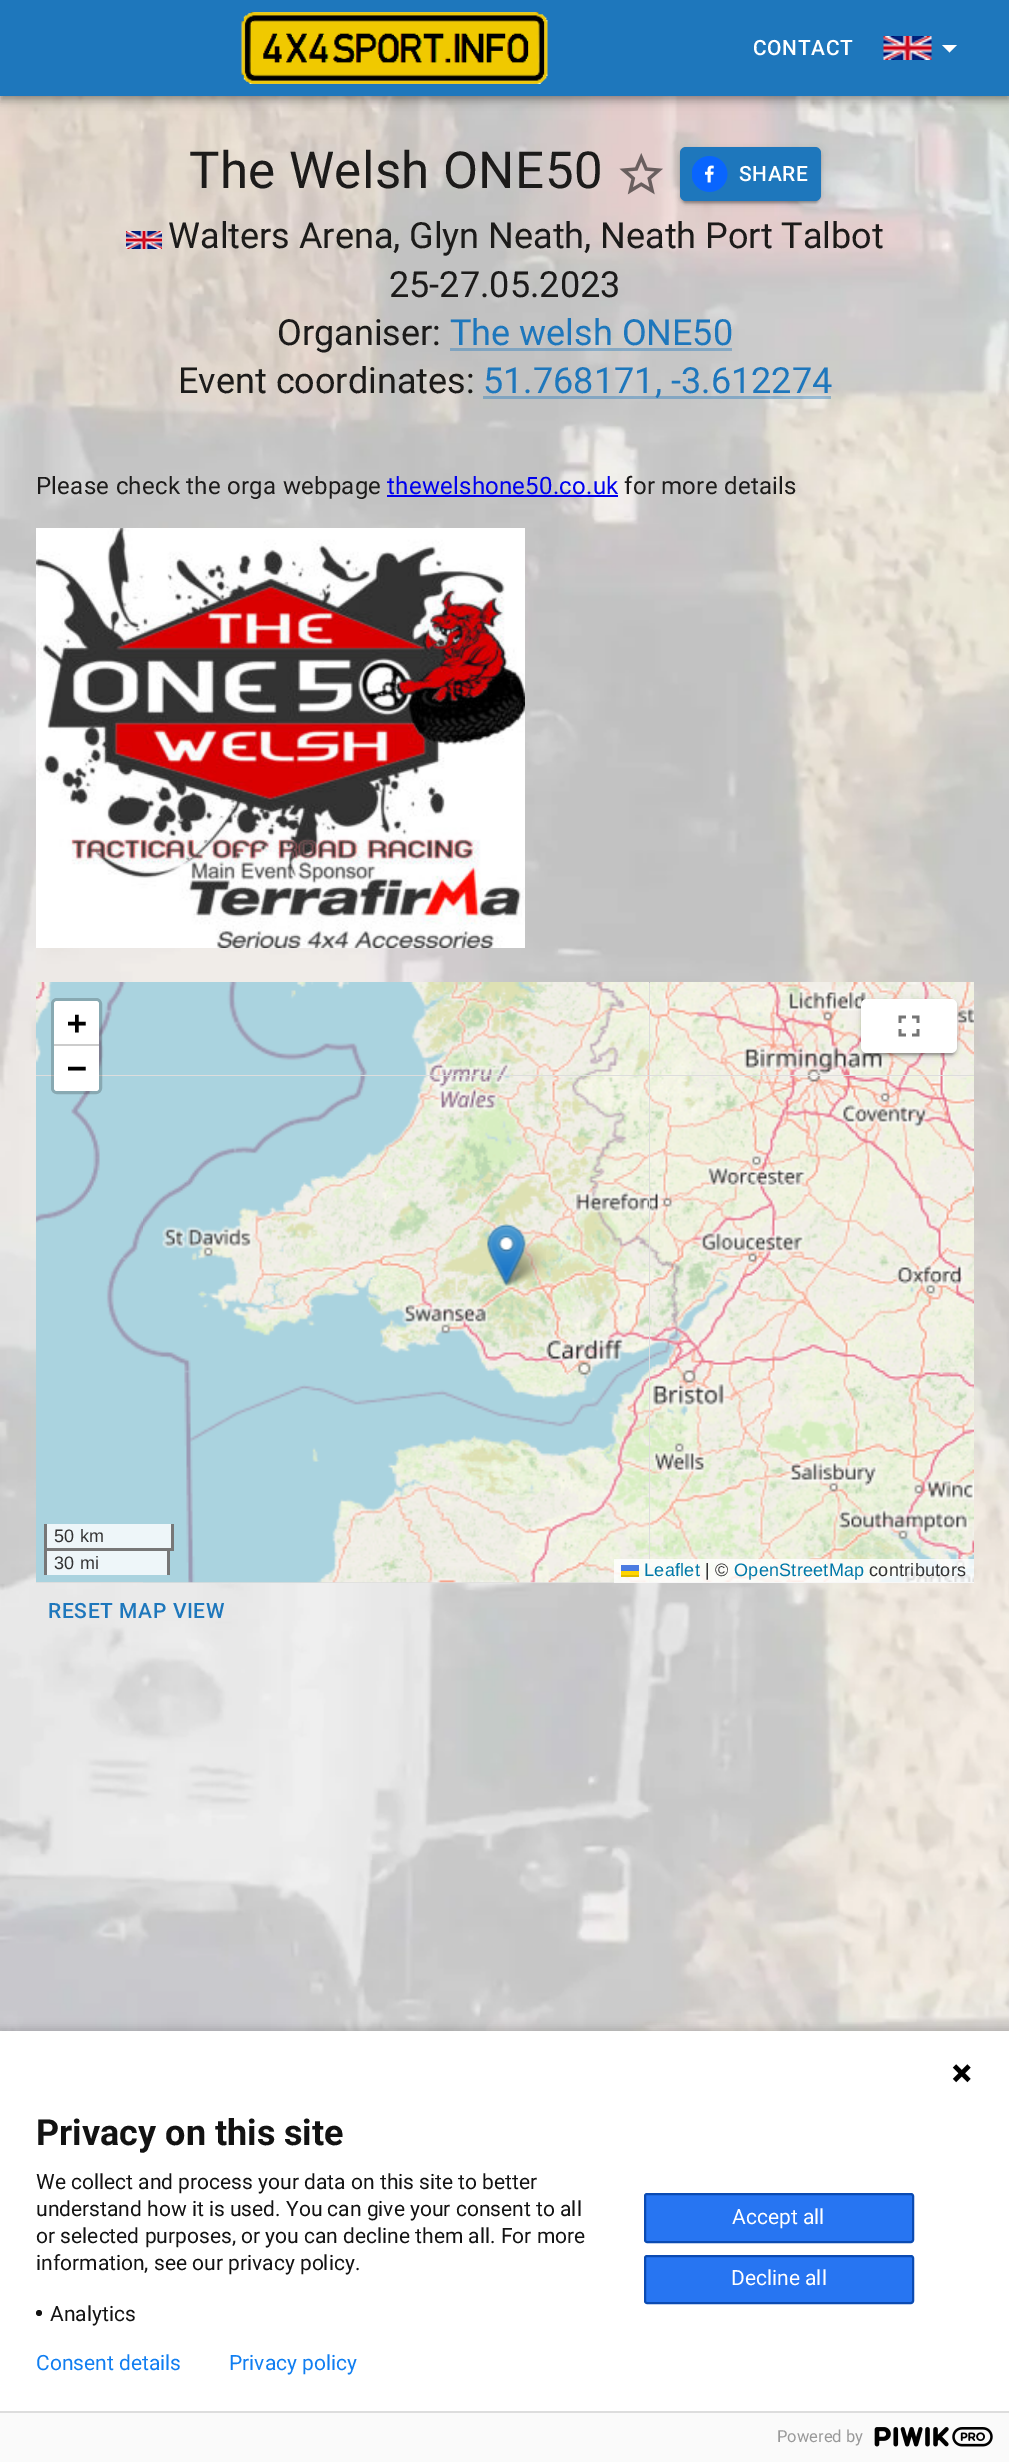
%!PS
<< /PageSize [1009 2462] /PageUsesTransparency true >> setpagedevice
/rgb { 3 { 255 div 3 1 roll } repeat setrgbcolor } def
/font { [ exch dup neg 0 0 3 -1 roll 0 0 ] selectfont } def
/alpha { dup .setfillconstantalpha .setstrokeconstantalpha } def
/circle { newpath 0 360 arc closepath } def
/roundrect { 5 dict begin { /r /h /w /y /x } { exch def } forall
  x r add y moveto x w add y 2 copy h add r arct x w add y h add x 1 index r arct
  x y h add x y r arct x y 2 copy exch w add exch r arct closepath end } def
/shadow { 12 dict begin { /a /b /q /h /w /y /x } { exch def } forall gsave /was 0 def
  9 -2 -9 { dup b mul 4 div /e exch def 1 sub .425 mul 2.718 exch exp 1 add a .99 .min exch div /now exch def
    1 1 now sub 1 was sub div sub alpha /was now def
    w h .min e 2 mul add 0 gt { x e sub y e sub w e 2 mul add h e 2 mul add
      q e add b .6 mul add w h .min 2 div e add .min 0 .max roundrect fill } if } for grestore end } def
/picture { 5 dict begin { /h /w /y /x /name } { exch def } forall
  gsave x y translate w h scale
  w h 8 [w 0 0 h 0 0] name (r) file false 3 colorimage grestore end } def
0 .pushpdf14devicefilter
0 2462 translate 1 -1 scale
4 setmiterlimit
255 255 255 rgb
0 0 1009 2462 rectfill
(img/1.rgb) 0 96 1009 1935 picture
0 0 0 rgb
0 2 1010 96 0 7.5 0.12 shadow
0 6 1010 96 0 4 0.14 shadow
2 5 1006 93 0 3 0.2 shadow
30 119 188 rgb
0 0 1009 96 rectfill
(img/2.rgb) 241 12 307 72 picture
(img/3.rgb) 883 36 49 24 picture
255 255 255 rgb
942 45 moveto 949.5 52.5 lineto 957 45 lineto closepath fill
(img/4.rgb) 619 153 44 42 picture
0 0 0 rgb
680 149 141 54 6 4 0.12 shadow
680 150 141 54 6 1.5 0.14 shadow
683 155 135 48 3 1 0.2 shadow
30 119 188 rgb
680 147 141 54 6 roundrect fill
(img/5.rgb) 692 156 36 36 picture
(img/6.rgb) 126 231 36 18 picture
0.4 alpha
[
  [450 348 282 3 30 119 188]
  [483 396 171 3 30 119 188]
] { aload pop rgb rectfill } forall
1 alpha
[
  [654 396 17 3 131 166 194]
  [387 495 231 2 0 0 238]
] { aload pop rgb rectfill } forall
(img/7.rgb) 36 528 489 420 picture
221 221 221 rgb
36 983 938 600 rectfill
(img/8.rgb) 36 982 107 93 picture
(img/9.rgb) 143 982 506 93 picture
(img/10.rgb) 650 982 324 93 picture
(img/12.rgb) 142 1076 507 507 picture
(img/11.rgb) 36 1076 107 506 picture
(img/13.rgb) 650 1076 324 506 picture
(img/15.rgb) 501 1243 45 43 picture
(img/14.rgb) 487 1224 39 62 picture
0 0 0 rgb
861 1001 96 54 6 4 0.12 shadow
861 1002 96 54 6 1.5 0.14 shadow
864 1007 90 48 3 1 0.2 shadow
255 255 255 rgb
861 999 96 54 6 roundrect fill
(img/16.rgb) 898 1015 22 22 picture
0.2 alpha
0 0 0 rgb
3 setlinewidth
52.5 999.5 48 93 4.5 roundrect stroke
1 alpha
255 255 255 rgb
57 1001 moveto 96 1001 lineto 97.5 1001 99 1002.5 99 1004 curveto 99 1046 lineto 54 1046 lineto 54 1004 lineto 54 1002.5 55.5 1001 57 1001 curveto closepath fill
204 204 204 rgb
54 1044 45 2 rectfill
255 255 255 rgb
54 1046 moveto 99 1046 lineto 99 1088 lineto 99 1089.5 97.5 1091 96 1091 curveto 57 1091 lineto 55.5 1091 54 1089.5 54 1088 curveto closepath fill
[
  [47 1524 124 24 238 246 249]
  [171 1524 3 27 119 119 119]
  [170 1548 4 3 119 119 119]
  [44 1524 3 27 119 119 119]
] { aload pop rgb rectfill } forall
0.8 alpha
[
  [47 1551 120 24 255 255 255]
] { aload pop rgb rectfill } forall
1 alpha
[
  [44 1548 126 3 119 119 119]
  [167 1548 3 27 119 119 119]
  [44 1548 3 27 119 119 119]
] { aload pop rgb rectfill } forall
0.8 alpha
[
  [614 1559 360 24 255 255 255]
] { aload pop rgb rectfill } forall
1 alpha
[
  [621 1565 18 6 76 123 225]
  [621 1571 18 4 255 213 0]
  [621 1575 18 2 224 188 0]
] { aload pop rgb rectfill } forall
0 0 0 rgb
-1 2027 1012 435 0 4 0.14 shadow
255 255 255 rgb
0 2031 1009 380 rectfill
(img/17.rgb) 952 2064 19 19 picture
19 19 19 rgb
39 2313 3 circle fill
39 117 242 rgb
645 2194 268 48 2 roundrect gsave fill grestore
11 75 179 rgb
2 setlinewidth
stroke
39 117 242 rgb
645 2256 268 47 2 roundrect gsave fill grestore
11 75 179 rgb
stroke
250 250 250 rgb
0 2413 1009 49 rectfill
221 221 221 rgb
0 2411 1009 2 rectfill
(img/18.rgb) 874 2427 119 20 picture
/Roboto-Medium 21 font
255 255 255 rgb
753 55 moveto 0.6 0 (CONTACT) ashow
/Roboto-Regular 51 font
28 27 26 rgb
189 188 moveto 0.4 0 (The Welsh ONE50) ashow
/Roboto-Medium 21 font
255 255 255 rgb
739 181 moveto 0.6 0 (SHARE) ashow
/Roboto-Regular 36 font
28 27 26 rgb
[
  [(Walters Arena, Glyn Neath, Neath Port Talbot) 168 248]
  [(25-27.05.2023) 389 297]
  [(Organiser) 277 345]
  [(:) 432 345]
] { aload pop moveto show } forall
30 119 188 rgb
450 345 moveto (The welsh ONE50) show
28 27 26 rgb
178 393 moveto (Event coordinates) show
466 393 moveto (:) show
30 119 188 rgb
483 393 moveto (51.768171) show
655 393 moveto (, -3.612274) show
0.4 alpha
671 396 160 3 rectfill
/Roboto-Regular 24 font
1 alpha
28 27 26 rgb
36 494 moveto 0.25 0 (Please check the orga webpage) ashow
0 0 238 rgb
387 494 moveto 0.25 0 (thewelshone50.co.uk) ashow
28 27 26 rgb
624 494 moveto 0.25 0 (for more details) ashow
/DejaVuSansMono-Bold 33 font
0 0 0 rgb
67 1034 moveto 0.25 0 (+) ashow
67 1079 moveto 0.25 0 (−) ashow
/LiberationSans-Regular 18 font
51 51 51 rgb
54 1542 moveto 0.25 0 (50 km) ashow
54 1569 moveto 0.25 0 (30 mi) ashow
0 120 168 rgb
644 1576 moveto 0.25 0 (Leaflet) ashow
51 51 51 rgb
705 1576 moveto 0.25 0 (| ©) ashow
0 120 168 rgb
734 1576 moveto 0.25 0 (OpenStreetMap) ashow
51 51 51 rgb
869 1576 moveto 0.25 0 (contributors) ashow
/Roboto-Medium 21 font
30 119 188 rgb
48 1618 moveto 0.6 0 (RESET MAP VIEW) ashow
/Roboto-Bold 36 font
19 19 19 rgb
36 2145 moveto (Privacy on this site) show
/Roboto-Regular 21 font
[
  [(We collect and process your data on this site to better) 36 2189]
  [(understand how it is used. You can give your consent to all) 36 2216]
  [(or selected purposes, or you can decline them all. For more) 36 2243]
  [(information, see our privacy policy.) 36 2270]
  [(Analytics) 50 2321]
] { aload pop moveto show } forall
255 255 255 rgb
732 2224 moveto (Accept all) show
731 2285 moveto (Decline all) show
16 126 241 rgb
36 2370 moveto (Consent details) show
229 2370 moveto (Privacy policy) show
/Roboto-Regular 16.5 font
153 153 153 rgb
777 2442 moveto (Powered by) show
.poppdf14devicefilter showpage
